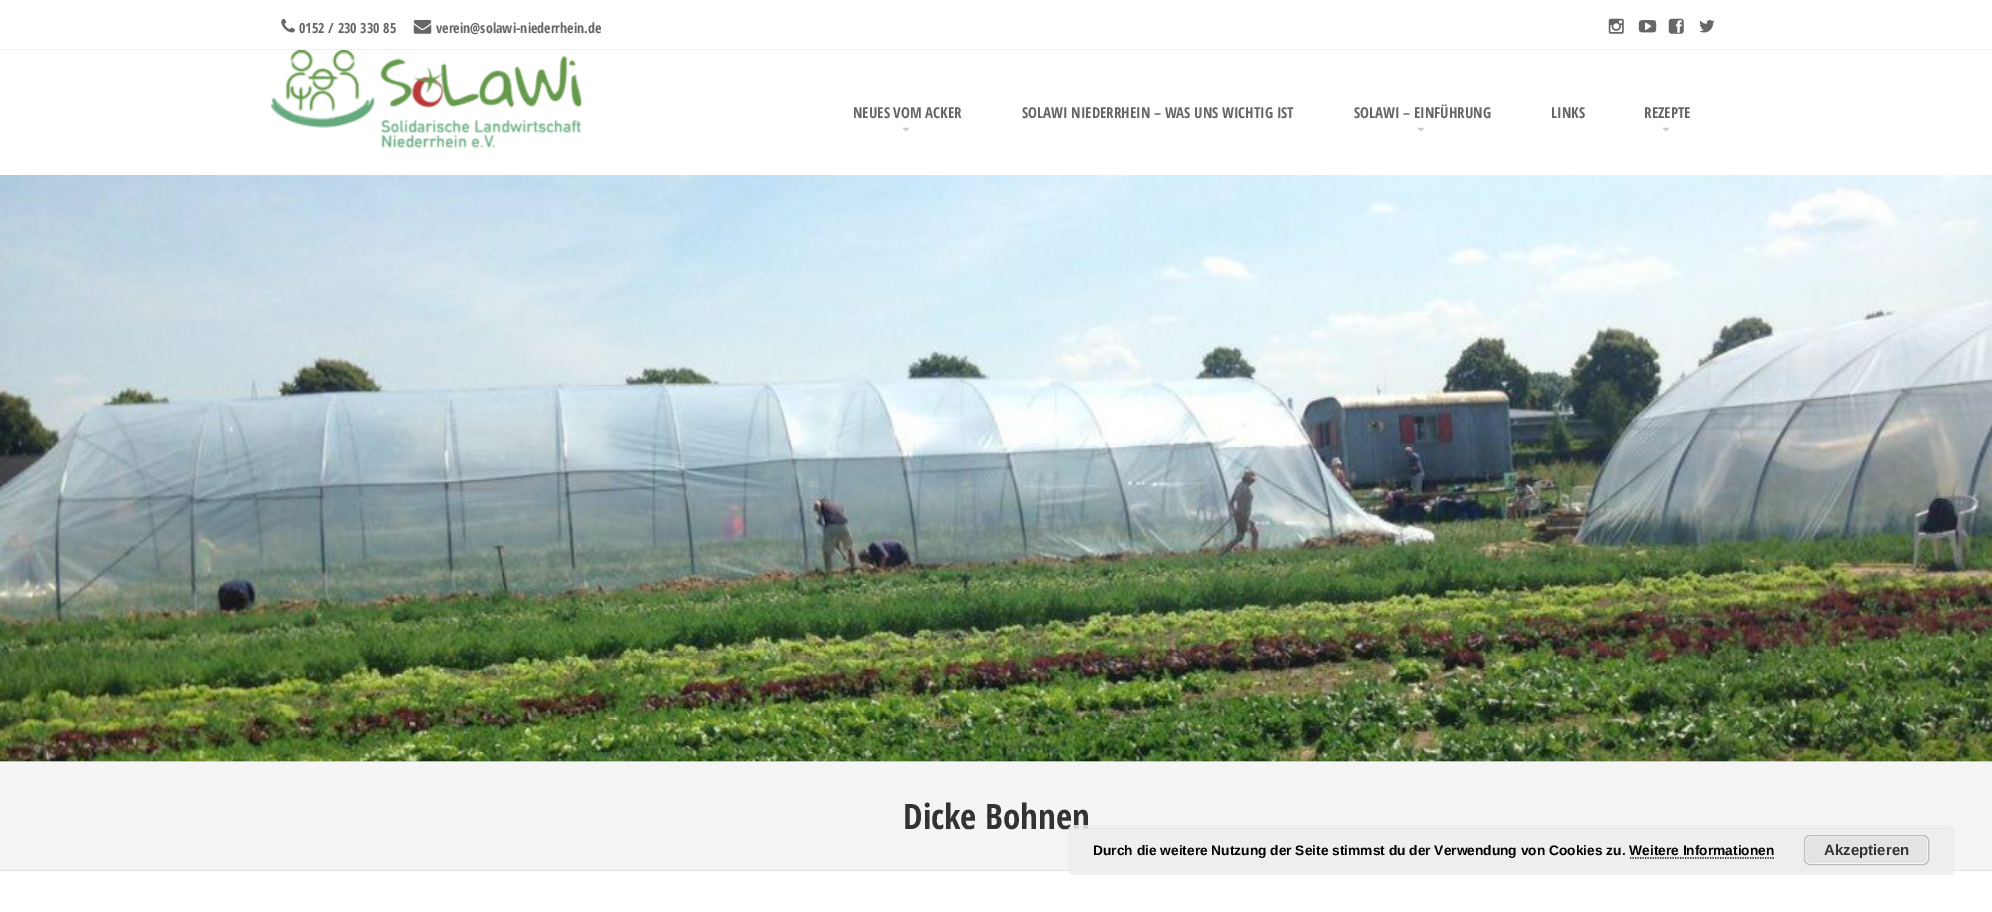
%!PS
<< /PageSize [1992 912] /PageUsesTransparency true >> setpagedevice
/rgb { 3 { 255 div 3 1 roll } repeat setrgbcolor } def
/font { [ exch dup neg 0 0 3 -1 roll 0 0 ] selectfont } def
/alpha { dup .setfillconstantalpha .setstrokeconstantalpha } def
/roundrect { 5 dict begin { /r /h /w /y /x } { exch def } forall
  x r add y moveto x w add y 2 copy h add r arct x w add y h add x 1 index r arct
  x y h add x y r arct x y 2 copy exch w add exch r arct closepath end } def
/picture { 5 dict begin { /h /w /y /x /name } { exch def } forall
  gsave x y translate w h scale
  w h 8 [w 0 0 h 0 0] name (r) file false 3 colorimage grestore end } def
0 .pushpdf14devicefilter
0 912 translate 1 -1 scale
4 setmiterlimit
255 255 255 rgb
0 0 1992 912 rectfill
239 239 239 rgb
0 49 1992 1 rectfill
(img/1.rgb) 281 18 14 15 picture
(img/2.rgb) 413 20 19 14 picture
(img/3.rgb) 1608 18 16 16 picture
(img/4.rgb) 1638 20 19 13 picture
(img/5.rgb) 1668 18 16 16 picture
(img/6.rgb) 1699 20 16 13 picture
(img/7.rgb) 271 50 311 98 picture
(img/8.rgb) 902 127 8 5 picture
(img/8.rgb) 1417 127 8 5 picture
(img/8.rgb) 1662 127 8 5 picture
225 225 225 rgb
0 761 1992 1 rectfill
(img/9.rgb) 0 175 1992 587 picture
245 245 245 rgb
0 762 1992 108 rectfill
225 225 225 rgb
0 870 1992 1 rectfill
/OpenSansCondensed-Bold 14 font
102 102 102 rgb
299 33 moveto (0152 / 230 330 85) show
436 33 moveto (verein@solawi-niederrhein.de) show
/OpenSansCondensed-Bold 15 font
[
  [(NEUES VOM ACKER) 853 118]
  [(SOLAWI NIEDERRHEIN – WAS UNS WICHTIG IST) 1022 118]
  [(SOLAWI – EINFÜHRUNG) 1354 118]
  [(LINKS) 1551 118]
  [(REZEPTE) 1644 118]
] { aload pop moveto show } forall
/OpenSansCondensed-Bold 35 font
51 51 51 rgb
903 829 moveto (Dicke Bohnen) show
0.85 alpha
237 237 237 rgb
1068 825 887 50 6 roundrect fill
/LiberationSans-Bold 13.75 font
1 alpha
0 0 0 rgb
1093 855 moveto (Durch die weitere Nutzung der Seite stimmst du der Verwendung von Cookies zu. Weitere Informationen) show
227 227 227 rgb
1804 835 125 30 6 roundrect fill
246 246 246 rgb
1805.5 836.5 122 27 4.5 roundrect stroke
187 187 187 rgb
1804.5 835.5 124 29 5.5 roundrect stroke
/LiberationSans-Bold 15 font
51 51 51 rgb
1824 855 moveto (Akzeptieren) show
0 0 0 rgb
1.2 setlinewidth
[1.25 1.25] 0 setdash
1630 858 moveto 1775 858 lineto stroke
.poppdf14devicefilter showpage
